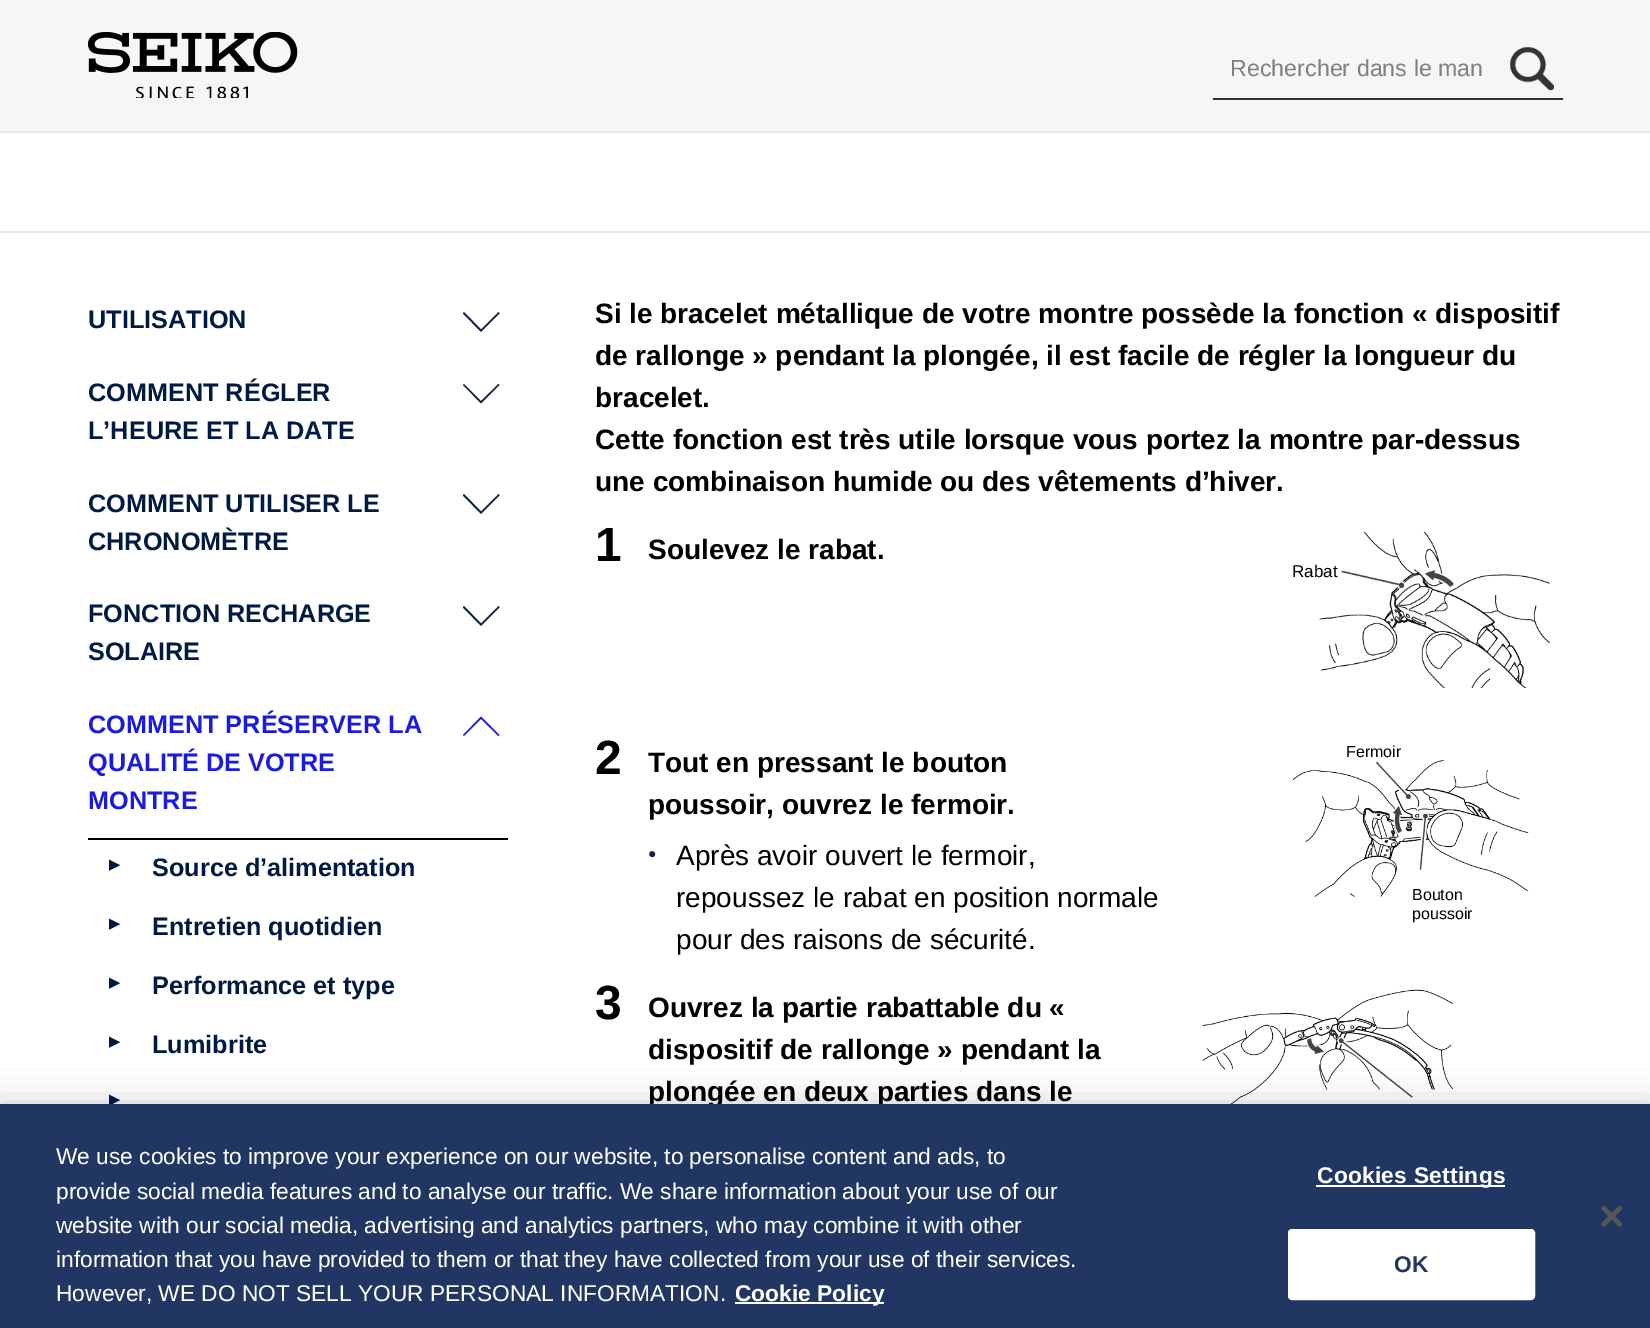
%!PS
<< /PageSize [1650 1328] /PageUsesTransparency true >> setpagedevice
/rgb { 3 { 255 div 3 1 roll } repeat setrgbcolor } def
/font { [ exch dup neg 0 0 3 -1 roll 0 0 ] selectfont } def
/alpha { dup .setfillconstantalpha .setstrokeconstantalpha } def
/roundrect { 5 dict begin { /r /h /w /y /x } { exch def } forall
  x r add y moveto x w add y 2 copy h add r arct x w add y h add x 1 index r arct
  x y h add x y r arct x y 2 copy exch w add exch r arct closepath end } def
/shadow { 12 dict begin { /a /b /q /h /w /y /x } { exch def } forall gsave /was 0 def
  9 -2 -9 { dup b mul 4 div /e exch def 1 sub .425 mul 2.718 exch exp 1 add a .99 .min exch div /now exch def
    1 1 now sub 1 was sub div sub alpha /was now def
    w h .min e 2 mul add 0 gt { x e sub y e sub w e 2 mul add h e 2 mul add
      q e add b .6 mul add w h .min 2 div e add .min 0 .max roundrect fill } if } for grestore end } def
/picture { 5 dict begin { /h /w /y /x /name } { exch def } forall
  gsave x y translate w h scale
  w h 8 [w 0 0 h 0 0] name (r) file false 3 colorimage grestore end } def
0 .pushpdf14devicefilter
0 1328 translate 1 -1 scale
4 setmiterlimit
255 255 255 rgb
0 0 1650 1328 rectfill
246 246 246 rgb
0 0 1650 131 rectfill
230 230 230 rgb
0 131 1650 2 rectfill
(img/1.rgb) 88 32 210 66 picture
51 51 51 rgb
1213 98 350 2 rectfill
(img/2.rgb) 1510 47 44 44 picture
20 34 69 rgb
481 332 moveto 463 313.5 lineto 464 312 lineto 481 329.5 lineto 498.5 312 lineto 499.5 313.5 lineto closepath fill
481 403.5 moveto 463 385 lineto 464 384 lineto 481 401 lineto 498.5 384 lineto 499.5 385 lineto closepath fill
481 514 moveto 463 495.5 lineto 464 494 lineto 481 511.5 lineto 498.5 494 lineto 499.5 495.5 lineto closepath fill
481 626 moveto 463 607.5 lineto 464 606 lineto 481 623.5 lineto 498.5 606 lineto 499.5 607.5 lineto closepath fill
27 27 224 rgb
481 716.5 moveto 499.5 735 lineto 498.5 736 lineto 481 719 lineto 464 736 lineto 463 735 lineto closepath fill
0 0 0 rgb
88 838 420 2 rectfill
230 230 230 rgb
0 231 1650 2 rectfill
(img/3.rgb) 1319 531 231 157 picture
(img/4.rgb) 1293 760 236 137 picture
(img/5.rgb) 1202 989 252 115 picture
0 0 0 rgb
0 1104 1650 224 0 16 0.2 shadow
/LiberationSans-Regular 23.25 font
128 128 128 rgb
1230 76 moveto (Rechercher dans le man) show
/LiberationSans-Bold 25.25 font
0 26 67 rgb
[
  [(UTILISATION) 88 328]
  [(COMMENT RÉGLER) 88 401]
  [(L’HEURE ET LA DATE) 88 439]
  [(COMMENT UTILISER LE) 88 512]
  [(CHRONOMÈTRE) 88 550]
  [(FONCTION RECHARGE) 88 622]
  [(SOLAIRE) 88 660]
] { aload pop moveto show } forall
27 27 224 rgb
[
  [(COMMENT PRÉSERVER LA) 88 733]
  [(QUALITÉ DE VOTRE) 88 771]
  [(MONTRE) 88 809]
] { aload pop moveto show } forall
/DejaVuSans-Bold 14 font
0 26 67 rgb
109 869 moveto (▶) show
/LiberationSans-Bold 25.25 font
152 876 moveto (Source d’alimentation) show
/DejaVuSans-Bold 14 font
109 928 moveto (▶) show
/LiberationSans-Bold 25.25 font
152 935 moveto (Entretien quotidien) show
/DejaVuSans-Bold 14 font
109 987 moveto (▶) show
/LiberationSans-Bold 25.25 font
152 994 moveto (Performance et type) show
/DejaVuSans-Bold 14 font
109 1046 moveto (▶) show
/LiberationSans-Bold 25.25 font
152 1053 moveto (Lumibrite) show
/DejaVuSans-Bold 14 font
109 1104 moveto (▶) show
/LiberationSans-Bold 28 font
0 0 0 rgb
[
  [(Si le bracelet métallique de votre montre possède la fonction « dispositif) 595 323]
  [(de rallonge » pendant la plongée, il est facile de régler la longueur du) 595 365]
  [(bracelet.) 595 407]
  [(Cette fonction est très utile lorsque vous portez la montre par-dessus) 595 449]
  [(une combinaison humide ou des vêtements d’hiver.) 595 491]
] { aload pop moveto show } forall
/LiberationSans-Bold 48 font
595 561 moveto (1) show
/LiberationSans-Bold 28 font
648 559 moveto (Soulevez le rabat.) show
/LiberationSans-Regular 17 font
1292 577 moveto (Rabat) show
/LiberationSans-Bold 48 font
595 774 moveto (2) show
gsave
648 742 484 84 rectclip
/LiberationSans-Bold 28 font
648 772 moveto (Tout en pressant le bouton) show
grestore
/LiberationSans-Bold 28 font
648 814 moveto (poussoir, ouvrez le fermoir.) show
/LiberationSans-Regular 16 font
[
  [(Fermoir) 1346 757]
  [(Bouton) 1412 900]
  [(poussoir) 1412 919]
] { aload pop moveto show } forall
/LiberationSans-Regular 14 font
20 34 69 rgb
648 858 moveto (●) show
/LiberationSans-Regular 28 font
0 0 0 rgb
[
  [(Après avoir ouvert le fermoir,) 676 865]
  [(repoussez le rabat en position normale) 676 907]
  [(pour des raisons de sécurité.) 676 949]
] { aload pop moveto show } forall
/LiberationSans-Bold 48 font
595 1019 moveto (3) show
/LiberationSans-Bold 28 font
[
  [(Ouvrez la partie rabattable du «) 648 1017]
  [(dispositif de rallonge » pendant la) 648 1059]
  [(plongée en deux parties dans le) 648 1101]
] { aload pop moveto show } forall
33 54 98 rgb
0 1104 1650 224 rectfill
/LiberationSans-Regular 22.75 font
255 255 255 rgb
[
  [(We use cookies to improve your experience on our website, to personalise content and ads, to) 56 1164]
  [(provide social media features and to analyse our traffic. We share information about your use of our) 56 1199]
  [(website with our social media, advertising and analytics partners, who may combine it with other) 56 1233]
  [(information that you have provided to them or that they have collected from your use of their services.) 56 1267]
  [(However, WE DO NOT SELL YOUR PERSONAL INFORMATION.) 56 1301]
] { aload pop moveto show } forall
735 1302 149 2 rectfill
/LiberationSans-Bold 22.75 font
735 1301 moveto (Cookie Policy) show
1316 1185 189 2 rectfill
1317 1183 moveto 0.25 0 (Cookies Settings) ashow
1289 1230 245 69 3 roundrect gsave fill grestore
2 setlinewidth
stroke
33 54 98 rgb
1394 1272 moveto 0.25 0 (OK) ashow
(img/6.rgb) 1601 1206 21 21 picture
.poppdf14devicefilter showpage
